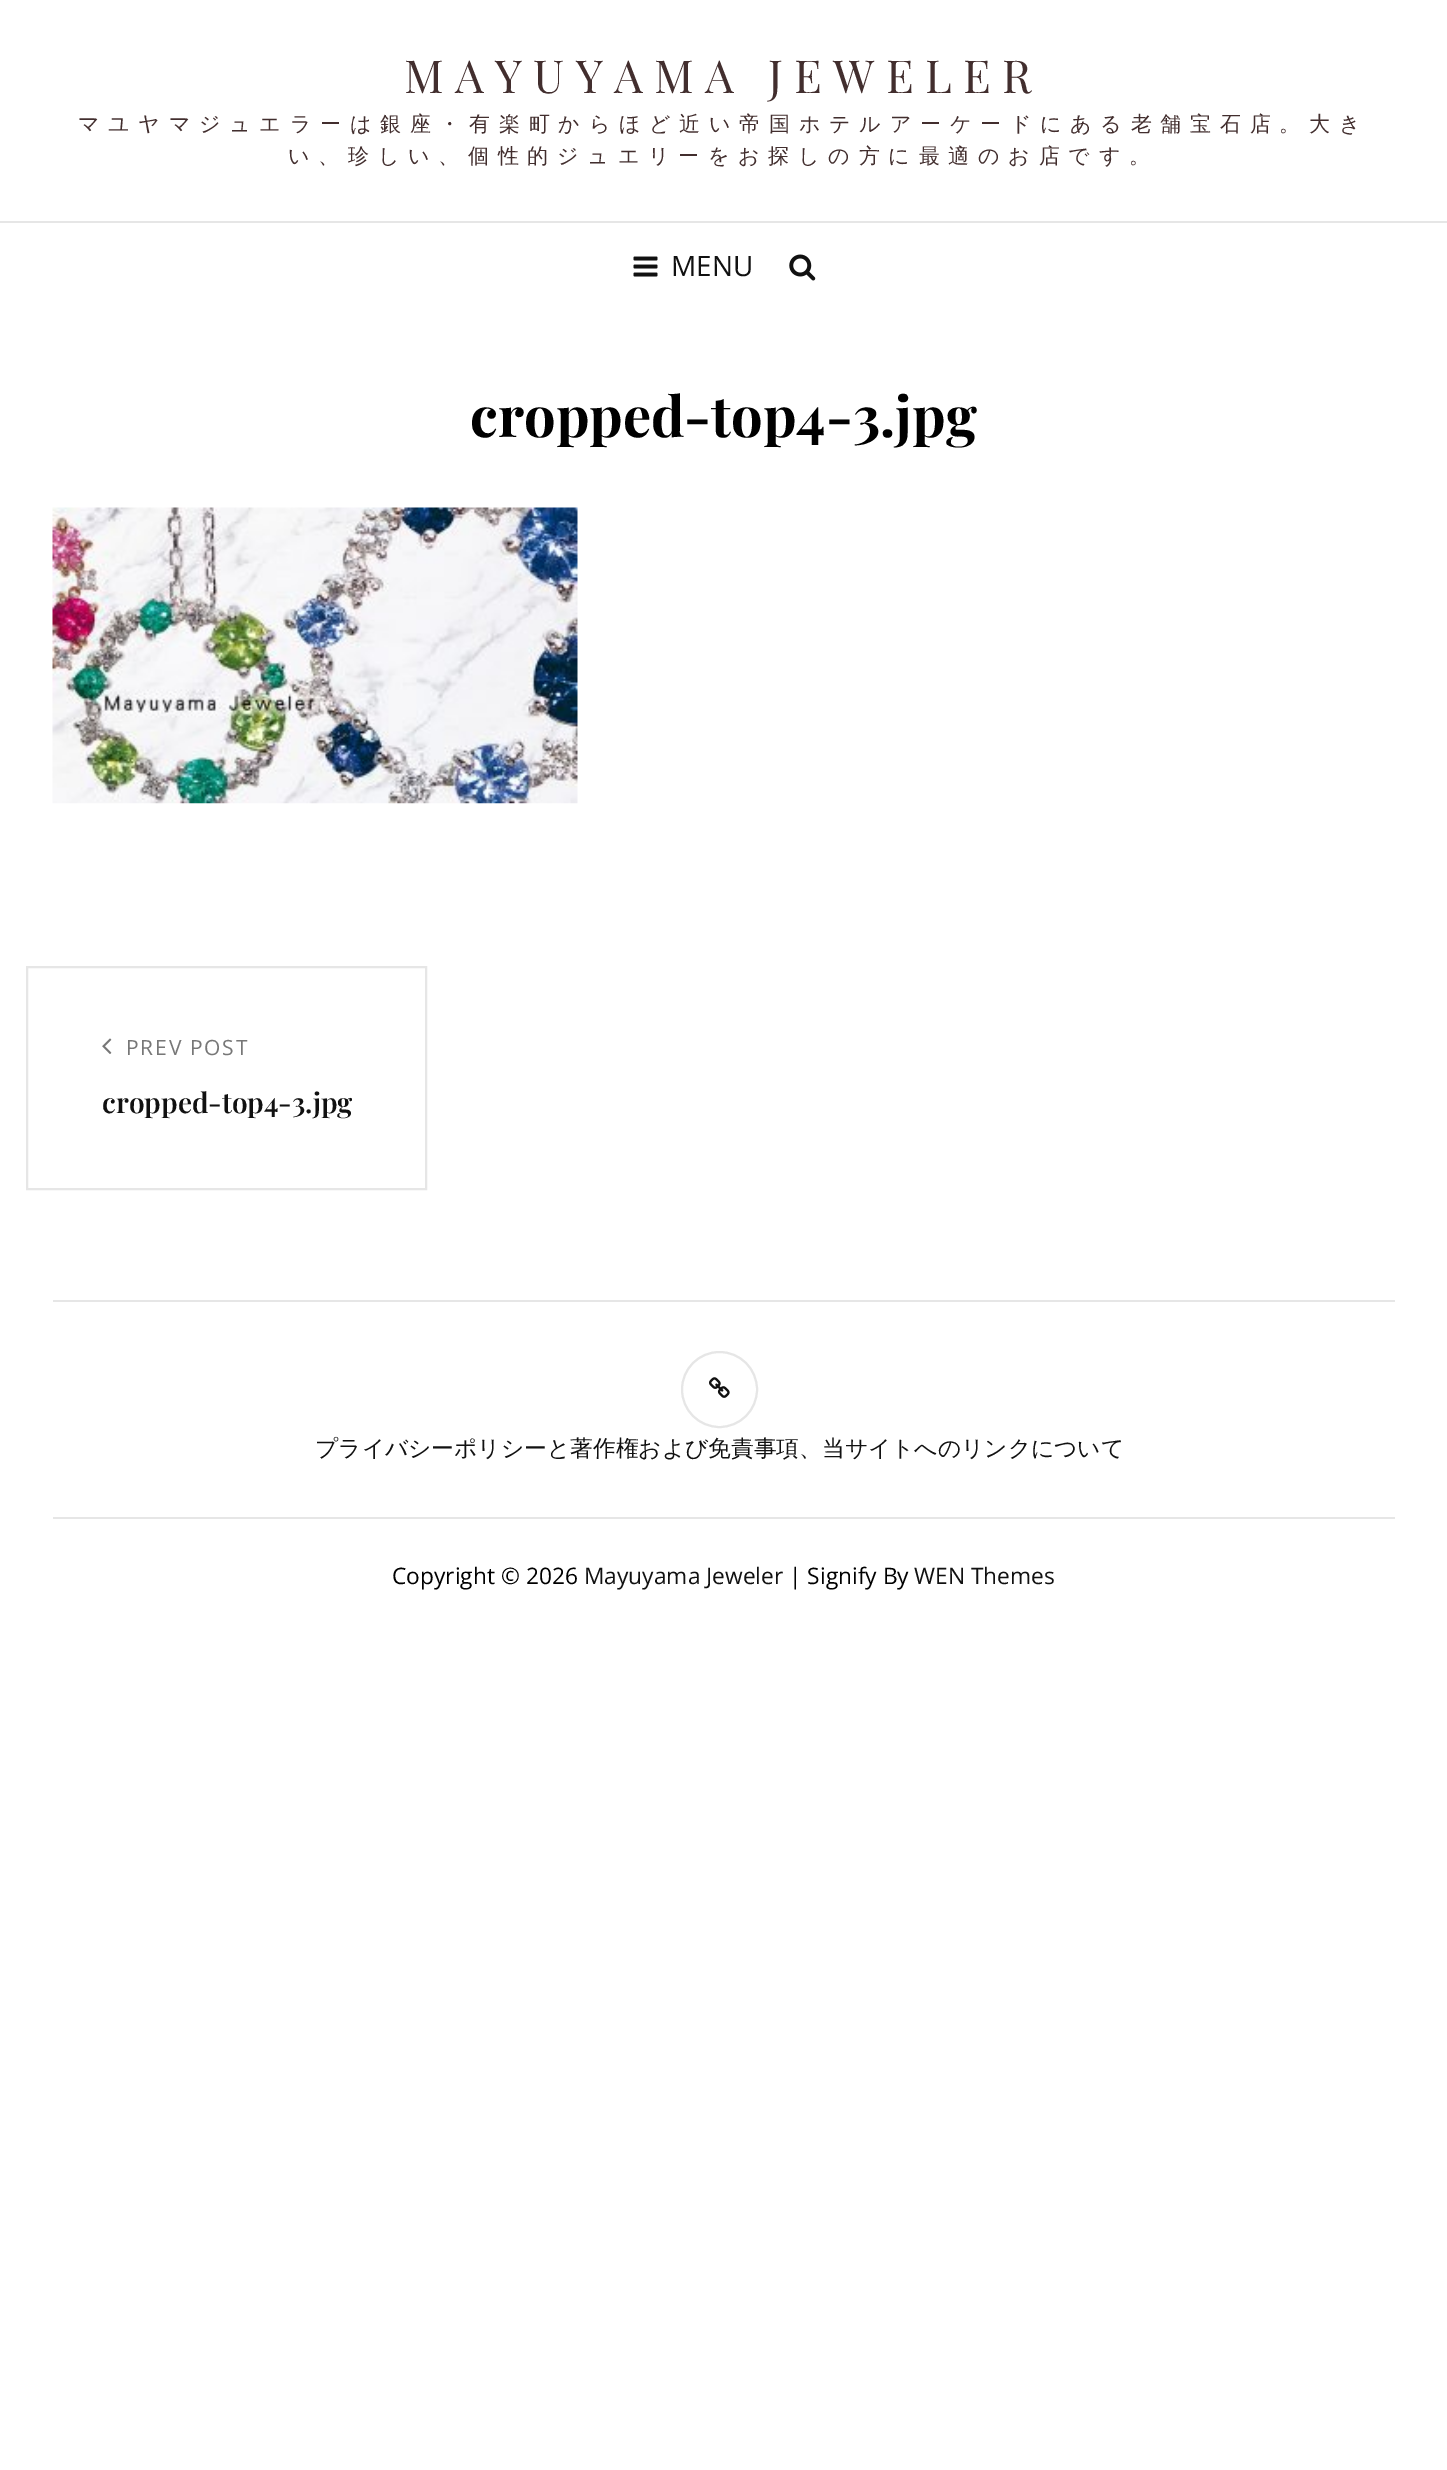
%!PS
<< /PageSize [1447 2470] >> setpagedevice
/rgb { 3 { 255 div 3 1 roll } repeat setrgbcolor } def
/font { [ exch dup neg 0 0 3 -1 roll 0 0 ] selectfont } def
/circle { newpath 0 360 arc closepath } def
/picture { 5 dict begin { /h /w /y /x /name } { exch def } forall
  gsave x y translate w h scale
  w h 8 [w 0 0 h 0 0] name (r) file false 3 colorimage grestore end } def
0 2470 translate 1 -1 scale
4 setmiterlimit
255 255 255 rgb
0 0 1447 2470 rectfill
230 230 230 rgb
0 221 1447 2 rectfill
(img/1.rgb) 633 256 25 21 picture
(img/2.rgb) 789 254 27 27 picture
(img/3.rgb) 52 507 526 297 picture
2 setlinewidth
27 967 399 222 rectstroke
(img/4.rgb) 102 1038 10 16 picture
53 1300 1342 2 rectfill
53 1517 1342 2 rectfill
719.5 1389.5 37.5 circle stroke
(img/5.rgb) 709 1377 21 21 picture
/PlayfairDisplay-Regular 45.5 font
66 46 46 rgb
404 93 moveto 11.4 0 (MAYUYAMA JEWELER) ashow
/WenQuanYiZenHei-Medium 21 font
78 131 moveto 8.75 0 (マユヤマジュエラーは銀座・有楽町からほど近い帝国ホテルアーケードにある老舗宝石店。大き) ashow
288 163 moveto 8.75 0 (い、珍しい、個性的ジュエリーをお探しの方に最適のお店です。) ashow
/OpenSans-Regular 28 font
17 17 17 rgb
671 276 moveto (MENU) show
/PlayfairDisplay-Bold 56 font
0 0 0 rgb
470 437 moveto (cropped-top4-3.jpg) show
/OpenSans-Regular 21 font
119 119 119 rgb
126 1055 moveto 1.75 0 (PREV POST) ashow
/PlayfairDisplay-SemiBold 28 font
17 17 17 rgb
102 1113 moveto (cropped-top4-3.jpg) show
/WenQuanYiZenHei-Medium 22.75 font
315 1456 moveto (プライバシーポリシーと著作権および免責事項、当サイトへのリンクについて) show
/OpenSans-Regular 22.75 font
0 0 0 rgb
392 1584 moveto (Copyright © 2026) show
17 17 17 rgb
584 1584 moveto (Mayuyama Jeweler) show
0 0 0 rgb
789 1584 moveto (| Signify By) show
17 17 17 rgb
914 1584 moveto (WEN Themes) show
showpage
